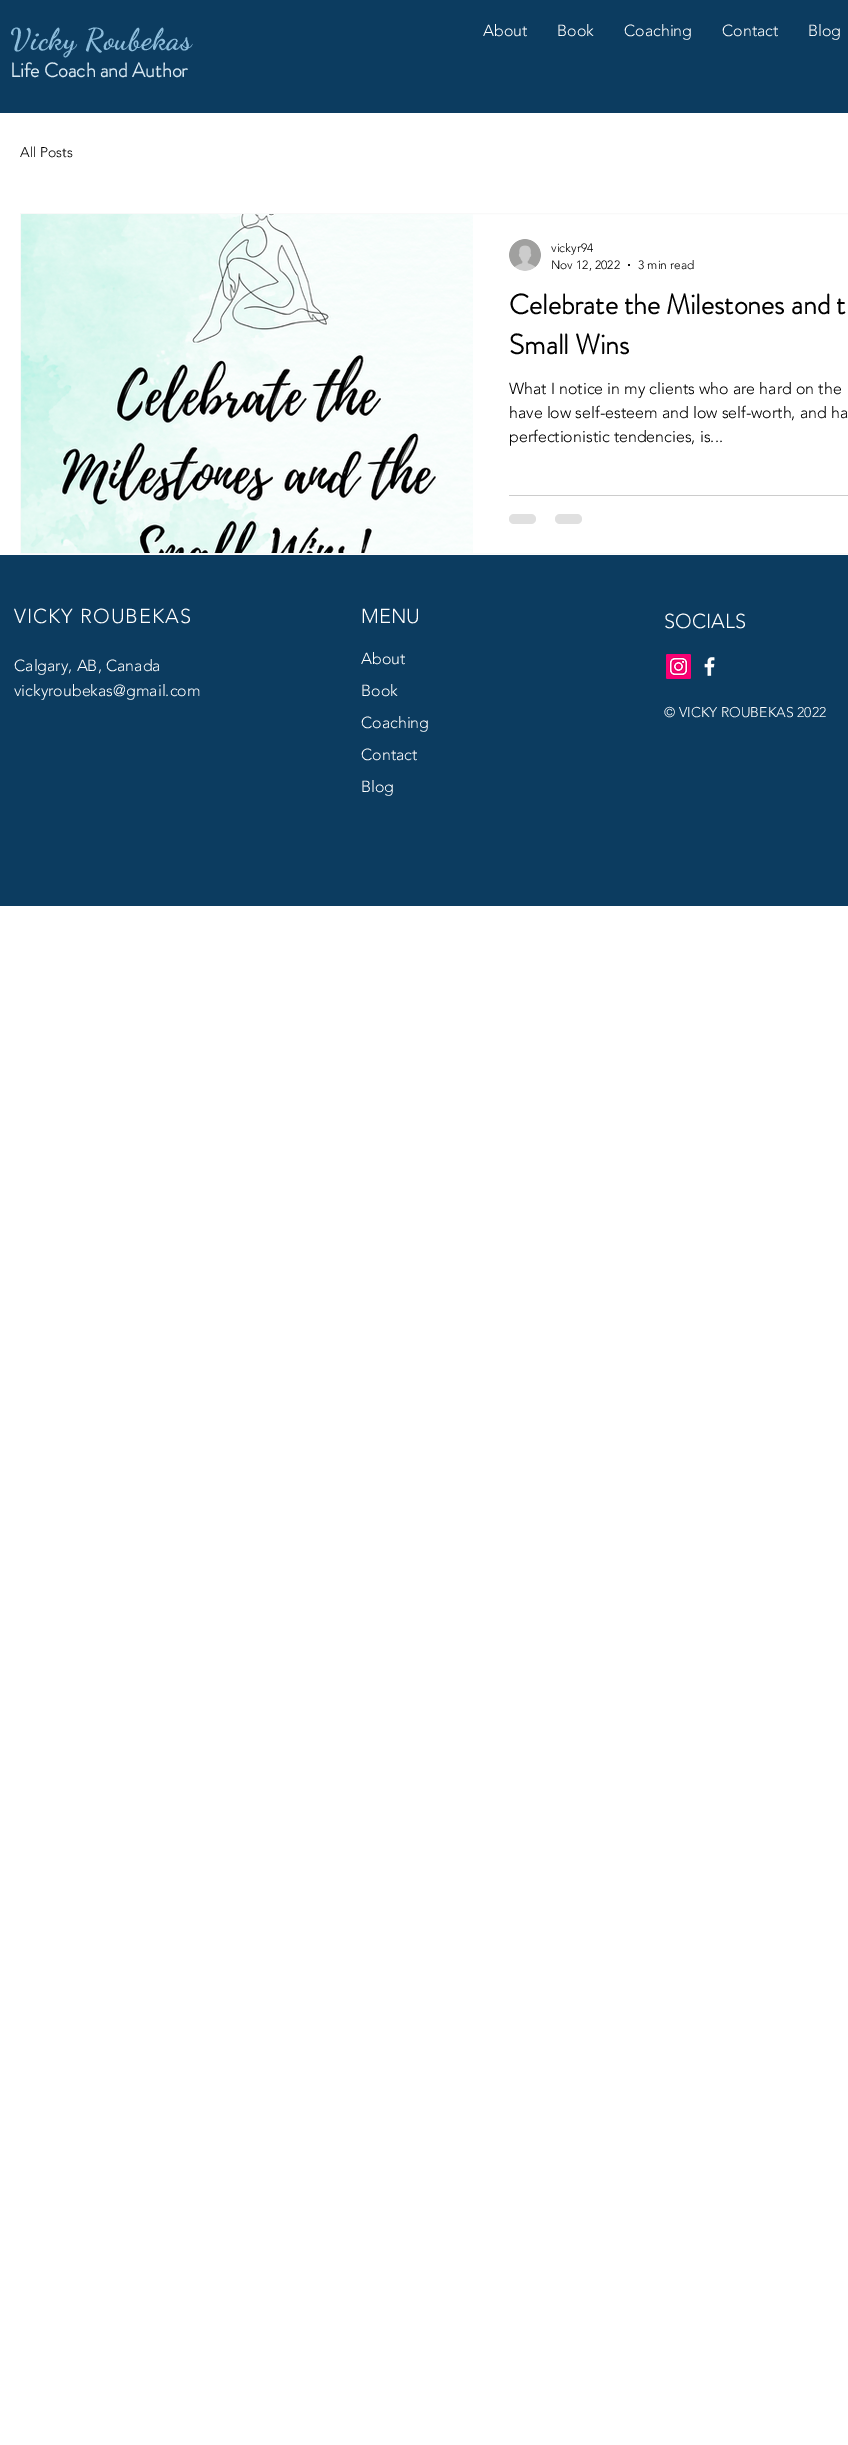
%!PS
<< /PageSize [848 2445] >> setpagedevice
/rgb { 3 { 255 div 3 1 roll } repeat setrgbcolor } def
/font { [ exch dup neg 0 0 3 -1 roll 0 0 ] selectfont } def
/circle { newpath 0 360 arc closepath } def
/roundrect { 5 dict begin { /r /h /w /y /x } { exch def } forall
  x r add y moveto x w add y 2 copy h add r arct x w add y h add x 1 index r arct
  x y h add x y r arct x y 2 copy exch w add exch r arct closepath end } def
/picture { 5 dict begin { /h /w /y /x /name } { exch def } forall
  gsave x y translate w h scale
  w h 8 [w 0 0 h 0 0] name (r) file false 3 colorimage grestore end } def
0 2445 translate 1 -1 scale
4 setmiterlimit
255 255 255 rgb
0 0 848 2445 rectfill
12 60 96 rgb
0 0 848 113 rectfill
249 249 249 rgb
20.5 213.5 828 340 rectstroke
(img/1.rgb) 21 214 452 339 picture
(img/2.rgb) 509 239 32 32 picture
0 0 0 rgb
629 265 1 circle fill
204 204 204 rgb
509 495 339 1 rectfill
224 224 224 rgb
509 514 27 10 5 roundrect fill
555 514 27 10 5 roundrect fill
12 60 96 rgb
0 555 848 351 rectfill
(img/3.rgb) 666 654 25 25 picture
(img/4.rgb) 704 657 11 19 picture
/DancingScript-Bold 30 font
140 188 219 rgb
10 49 moveto 0.6 0 (Vicky Roubekas) ashow
/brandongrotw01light-Bold 20 font
216 232 242 rgb
10 77 moveto (Life Coach and Author) show
/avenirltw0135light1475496-Light 16 font
255 255 255 rgb
[
  [(About) 483 36]
  [(Book) 557 36]
  [(Coaching) 624 36]
  [(Contact) 722 36]
  [(Blog) 808 36]
] { aload pop moveto show } forall
/avenirltw0135light1475496-Light 14 font
0 0 0 rgb
20 157 moveto (All Posts) show
/avenirltw0135light1475496-Light 12 font
[
  [(vickyr94) 551 252]
  [(Nov 12, 2022) 551 269]
  [(3 min read) 638 269]
] { aload pop moveto show } forall
/brandongrotw01light-Bold 28 font
509 314 moveto (Celebrate the Milestones and t) show
509 354 moveto (Small Wins) show
/avenirltw0135light1475496-Light 16 font
[
  [(What I notice in my clients who are hard on the) 509 394]
  [(have low self-esteem and low self-worth, and ha) 509 418]
  [(perfectionistic tendencies, is...) 509 442]
] { aload pop moveto show } forall
/avenirltw0135light1475496-Light 20 font
255 255 255 rgb
14 623 moveto 1 0 (VICKY ROUBEKAS) ashow
/avenirltw0135light1475496-Light 16 font
14 671 moveto (Calgary, AB, Canada) show
14 696 moveto (vickyroubekas@gmail.com) show
/avenirltw0135light1475496-Light 20 font
361 623 moveto (MENU) show
/avenirltw0135light1475496-Light 16 font
[
  [(About) 361 664]
  [(Book) 361 696]
  [(Coaching) 361 728]
  [(Contact) 361 760]
  [(Blog) 361 792]
] { aload pop moveto show } forall
/avenirltw0135light1475496-Light 20 font
664 628 moveto (SOCIALS) show
/avenirltw0135light1475496-Light 14 font
664 717 moveto (© VICKY ROUBEKAS 2022) show
showpage
